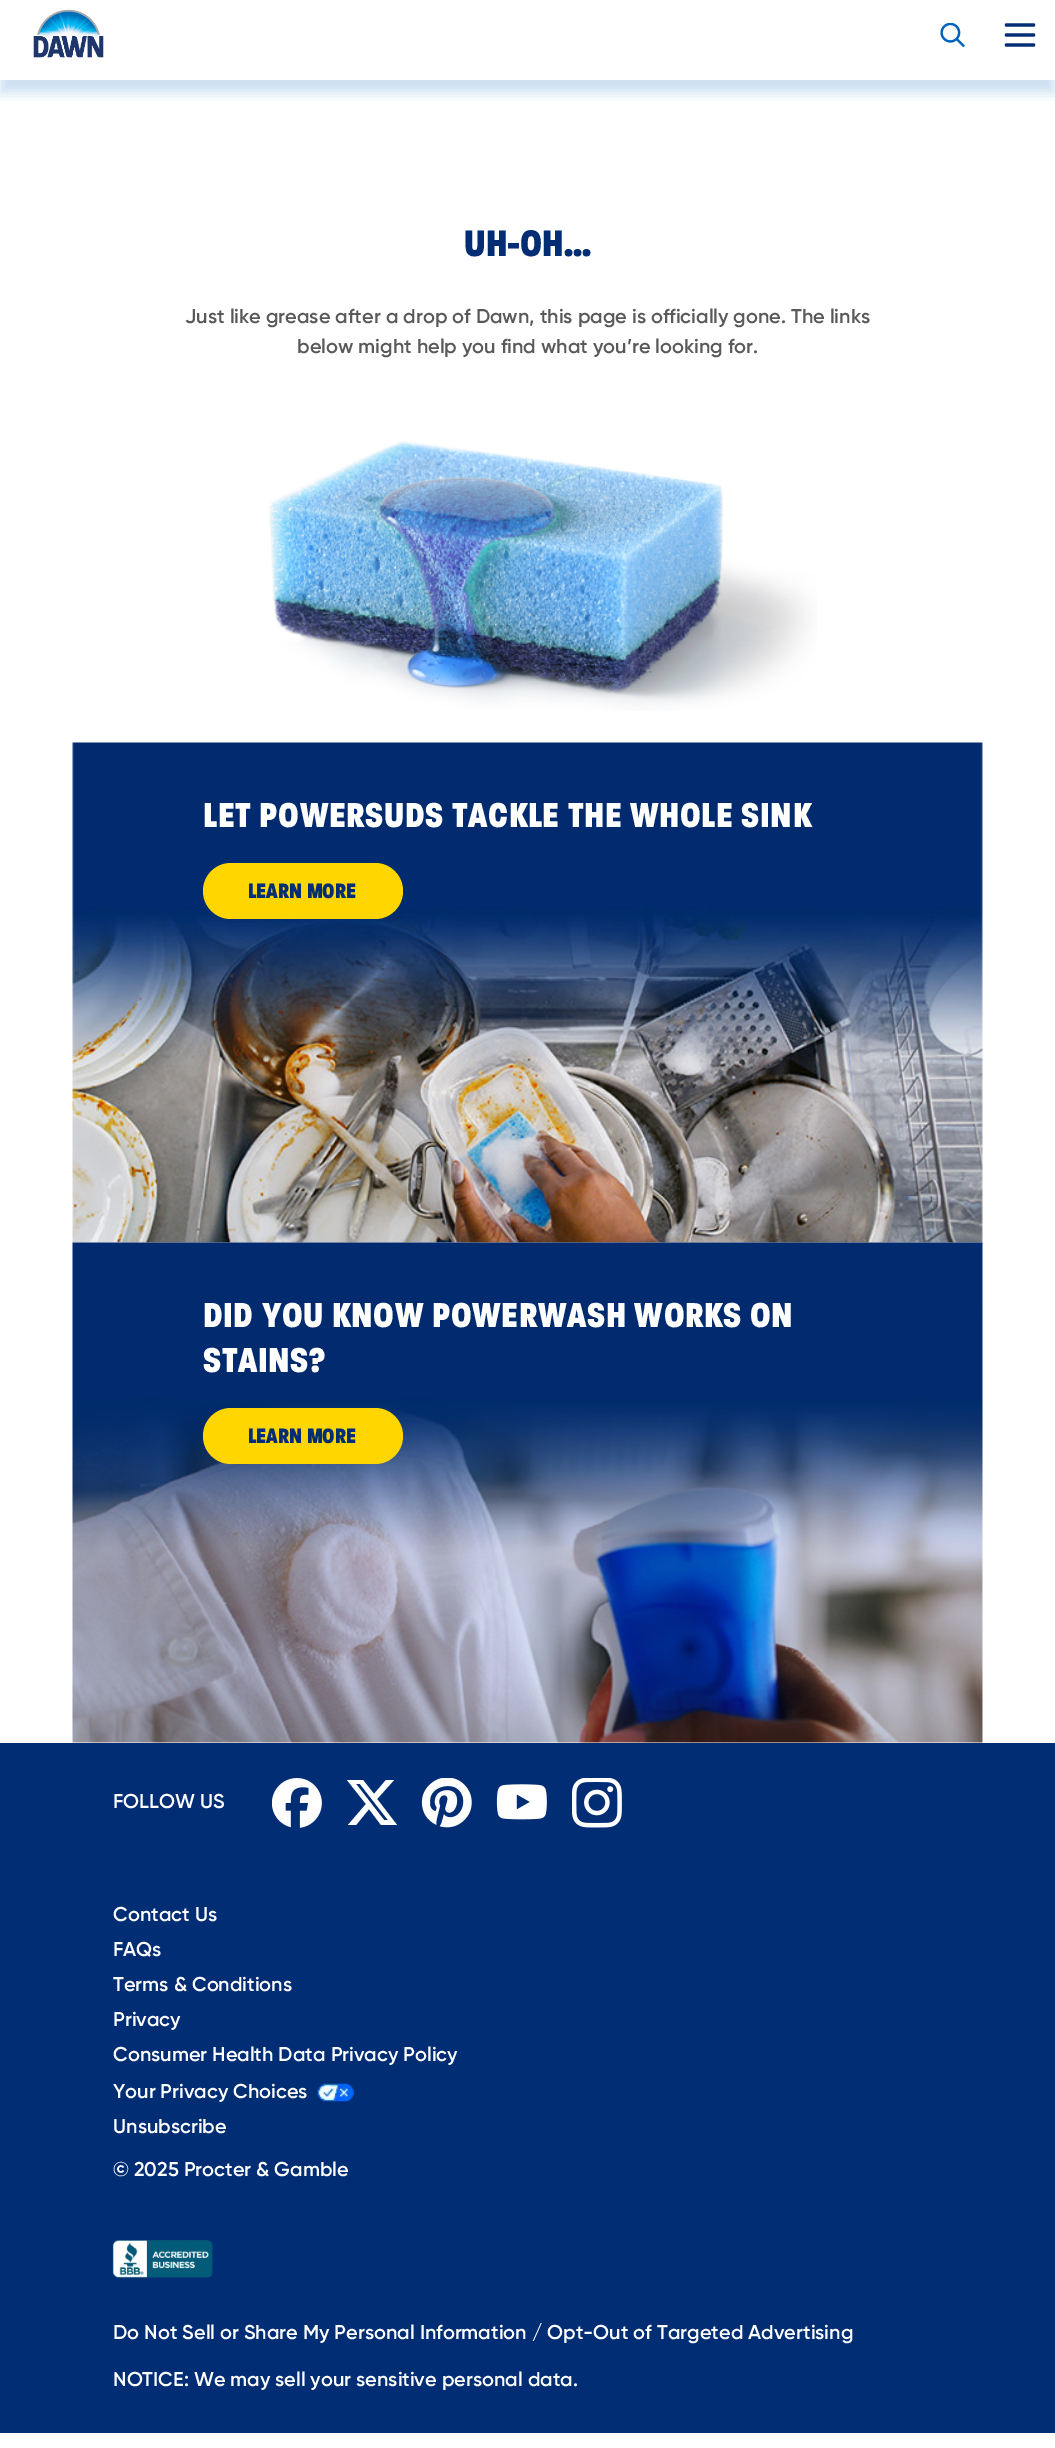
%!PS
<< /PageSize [1055 2448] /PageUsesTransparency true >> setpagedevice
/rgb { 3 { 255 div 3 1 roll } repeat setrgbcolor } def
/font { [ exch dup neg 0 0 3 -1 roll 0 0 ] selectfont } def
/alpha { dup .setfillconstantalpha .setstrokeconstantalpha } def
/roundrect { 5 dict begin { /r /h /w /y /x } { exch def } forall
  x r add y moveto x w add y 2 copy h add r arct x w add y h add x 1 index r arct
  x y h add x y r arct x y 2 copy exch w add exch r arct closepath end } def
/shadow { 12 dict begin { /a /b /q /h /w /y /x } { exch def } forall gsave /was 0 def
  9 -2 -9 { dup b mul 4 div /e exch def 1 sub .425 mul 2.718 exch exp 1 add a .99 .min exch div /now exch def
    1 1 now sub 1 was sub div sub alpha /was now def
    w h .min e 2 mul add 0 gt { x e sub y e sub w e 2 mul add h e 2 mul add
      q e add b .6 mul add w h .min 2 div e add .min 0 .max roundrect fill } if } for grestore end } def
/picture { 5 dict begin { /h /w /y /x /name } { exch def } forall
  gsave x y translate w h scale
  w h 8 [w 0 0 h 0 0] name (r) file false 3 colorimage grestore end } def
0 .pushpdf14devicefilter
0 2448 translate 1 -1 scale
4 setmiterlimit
255 255 255 rgb
0 0 1055 2448 rectfill
gsave
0 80 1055 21 rectclip
0 99 189 rgb
0 13 1055 80 0 6 0.2 shadow
grestore
(img/1.rgb) 33 9 71 49 picture
(img/2.rgb) 940 23 25 25 picture
0 45 115 rgb
3.3 setlinewidth
1 setlinecap
1 setlinejoin
1006.5 25 moveto 1033.5 25 lineto 1006.5 35 moveto 1033.5 35 lineto 1006.5 45 moveto 1033.5 45 lineto stroke
(img/3.rgb) 269 441 548 270 picture
(img/4.rgb) 72 742 911 501 picture
255 214 0 rgb
203 863 200 56 28 roundrect fill
(img/5.rgb) 72 1242 911 501 picture
203 1408 200 56 28 roundrect fill
0 45 115 rgb
0 1743 1055 690 rectfill
(img/6.rgb) 272 1778 50 50 picture
255 255 255 rgb
386 1780 moveto 394 1780 lineto 377 1799 lineto 397 1825 lineto 381 1825 lineto 369 1809 lineto 356 1825 lineto 348 1825 lineto 366 1804 lineto 347 1780 lineto 363 1780 lineto 374 1794 lineto closepath 384 1820 moveto 388 1820 lineto 360 1784 lineto 356 1784 lineto closepath fill
(img/7.rgb) 421 1778 51 50 picture
(img/8.rgb) 496 1784 51 36 picture
(img/9.rgb) 572 1778 50 50 picture
(img/10.rgb) 317 2083 37 19 picture
(img/11.rgb) 112 2240 101 38 picture
/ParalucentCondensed-Black 40 font
0 45 115 rgb
464 256 moveto (UH-OH...) show
/Gilroy-SemiBold 20 font
89 89 89 rgb
185 323 moveto (Just like grease after a drop of Dawn, this page is officially gone. The links) show
297 353 moveto (below might help you find what you’re looking for.) show
/ParalucentCondensed-Black 37.5 font
255 255 255 rgb
203 827 moveto 0.6 0 (LET POWERSUDS TACKLE THE WHOLE SINK) ashow
/ParalucentCondensed-Black 22.5 font
0 45 115 rgb
248 898 moveto (LEARN MORE) show
/ParalucentCondensed-Black 37.5 font
255 255 255 rgb
203 1327 moveto 0.6 0 (DID YOU KNOW POWERWASH WORKS ON) ashow
203 1372 moveto 0.6 0 (STAINS?) ashow
/ParalucentCondensed-Black 22.5 font
0 45 115 rgb
248 1443 moveto (LEARN MORE) show
/Gilroy-SemiBold 20 font
255 255 255 rgb
[
  [(FOLLOW US) 113 1808]
  [(Contact Us) 113 1921]
  [(FAQs) 113 1956]
  [(Terms & Conditions) 113 1991]
  [(Privacy) 113 2026]
  [(Consumer Health Data Privacy Policy) 113 2061]
  [(Your Privacy Choices) 113 2098]
  [(Unsubscribe) 113 2133]
  [(© 2025 Procter & Gamble) 113 2176]
  [(Do Not Sell or Share My Personal Information / Opt-Out of Targeted Advertising) 113 2339]
  [(NOTICE: We may sell your sensitive personal data.) 113 2386]
] { aload pop moveto show } forall
.poppdf14devicefilter showpage
